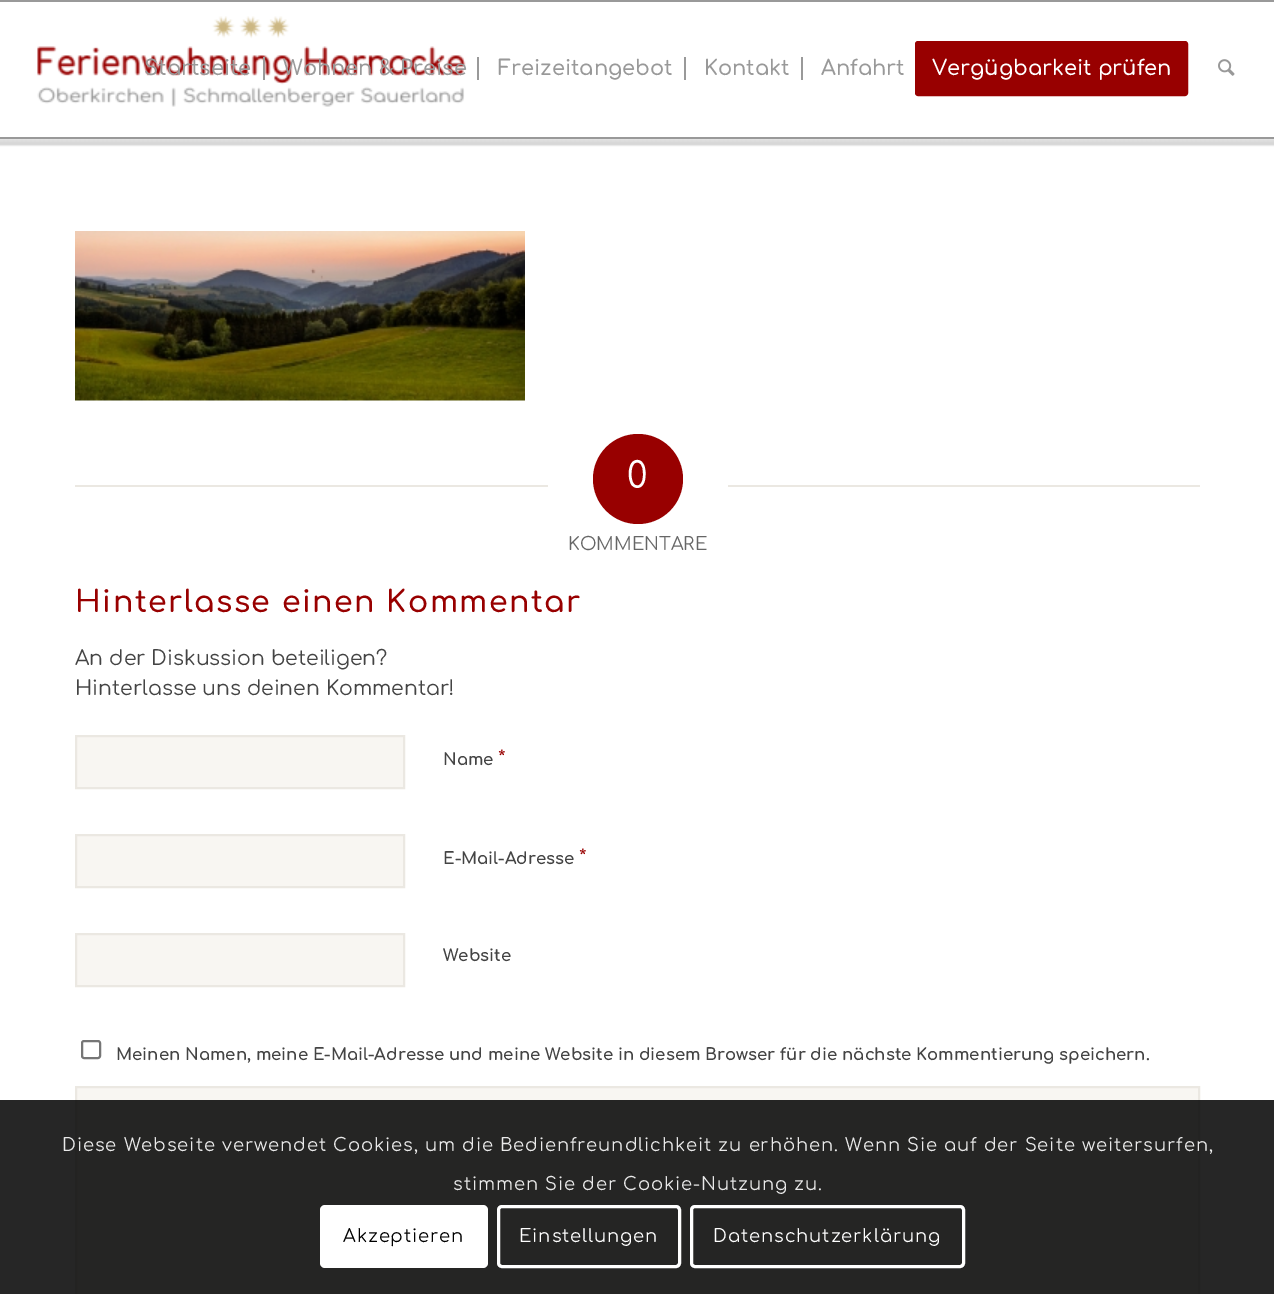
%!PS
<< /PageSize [1274 1294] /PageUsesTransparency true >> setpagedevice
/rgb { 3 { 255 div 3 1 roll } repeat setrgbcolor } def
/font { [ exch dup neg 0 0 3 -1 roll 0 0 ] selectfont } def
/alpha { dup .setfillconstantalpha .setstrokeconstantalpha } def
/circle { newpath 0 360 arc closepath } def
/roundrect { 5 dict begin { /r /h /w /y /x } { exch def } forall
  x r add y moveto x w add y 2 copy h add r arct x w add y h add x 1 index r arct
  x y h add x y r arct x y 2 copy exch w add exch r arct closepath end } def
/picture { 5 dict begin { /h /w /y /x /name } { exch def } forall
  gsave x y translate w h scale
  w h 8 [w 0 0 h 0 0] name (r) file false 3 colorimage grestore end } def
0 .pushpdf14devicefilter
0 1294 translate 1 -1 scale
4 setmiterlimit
255 255 255 rgb
0 0 1274 1294 rectfill
153 153 153 rgb
0 0 1274 2 rectfill
0 137 1274 2 rectfill
(img/1.rgb) 37 16 429 91 picture
[
  [263 57 2 23 153 153 153]
  [477 57 2 23 153 153 153]
  [684 57 2 23 153 153 153]
  [801 57 2 23 153 153 153]
] { aload pop rgb rectfill } forall
152 0 0 rgb
916.5 42.5 270 52 1.5 roundrect gsave fill grestore
3 setlinewidth
stroke
(img/2.rgb) 1218 59 17 17 picture
(img/3.rgb) 0 139 1274 8 picture
(img/4.rgb) 75 231 450 170 picture
235 232 226 rgb
75 485 473 2 rectfill
152 0 0 rgb
638 479 45 circle fill
235 232 226 rgb
728 485 472 2 rectfill
248 246 242 rgb
76 736 moveto 404 736 lineto 404 788 lineto 76 788 lineto closepath gsave fill grestore
235 232 226 rgb
2 setlinewidth
stroke
248 246 242 rgb
76 835 moveto 404 835 lineto 404 887 lineto 76 887 lineto closepath gsave fill grestore
235 232 226 rgb
stroke
248 246 242 rgb
76 934 moveto 404 934 lineto 404 986 lineto 76 986 lineto closepath gsave fill grestore
235 232 226 rgb
stroke
118 118 118 rgb
82 1041 18 17 2 roundrect stroke
248 246 242 rgb
76 1087 moveto 1199 1087 lineto 1199 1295 lineto 76 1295 lineto closepath gsave fill grestore
235 232 226 rgb
stroke
0.85 alpha
0 0 0 rgb
0 1100 1274 194 rectfill
1 alpha
255 255 255 rgb
320 1205 168 63 5 roundrect fill
3 setlinewidth
498.5 1206.5 181 60 3.5 roundrect stroke
691.5 1206.5 272 60 3.5 roundrect stroke
/Comfortaa-SemiBold 21 font
153 153 153 rgb
[
  [(Startseite) 144 75]
  [(Wohnen & Preise) 283 75]
  [(Freizeitangebot) 498 75]
  [(Kontakt) 704 75]
  [(Anfahrt) 821 75]
] { aload pop moveto show } forall
255 255 255 rgb
932 75 moveto (Vergügbarkeit prüfen) show
/Comfortaa-Regular 36 font
627 488 moveto (0) show
/Comfortaa-Regular 18 font
102 102 102 rgb
568 550 moveto (KOMMENTARE) show
/Comfortaa-SemiBold 30 font
152 0 0 rgb
75 612 moveto 1.5 0 (Hinterlasse einen Kommentar) ashow
/Comfortaa-Regular 20.4 font
68 68 68 rgb
75 665 moveto (An der Diskussion beteiligen?) show
75 695 moveto (Hinterlasse uns deinen Kommentar!) show
/Comfortaa-Bold 16.5 font
443 765 moveto (Name) show
/Comfortaa-Regular 20 font
152 0 0 rgb
498 765 moveto (*) show
/Comfortaa-Bold 16.5 font
68 68 68 rgb
443 864 moveto (E-Mail-Adresse) show
/Comfortaa-Regular 20 font
152 0 0 rgb
579 864 moveto (*) show
/Comfortaa-Bold 16.5 font
68 68 68 rgb
443 961 moveto (Website) show
116 1060 moveto (Meinen Namen, meine E-Mail-Adresse und meine Website in diesem Browser für die nächste Kommentierung speichern.) show
/Comfortaa-Regular 18 font
233 233 233 rgb
62 1151 moveto 0.9 0 (Diese Webseite verwendet Cookies, um die Bedienfreundlichkeit zu erhöhen. Wenn Sie auf der Seite weitersurfen,) ashow
453 1190 moveto 0.9 0 (stimmen Sie der Cookie-Nutzung zu.) ashow
0 0 0 rgb
343 1242 moveto 0.9 0 (Akzeptieren) ashow
255 255 255 rgb
519 1242 moveto 0.9 0 (Einstellungen) ashow
713 1242 moveto 0.9 0 (Datenschutzerklärung) ashow
.poppdf14devicefilter showpage
